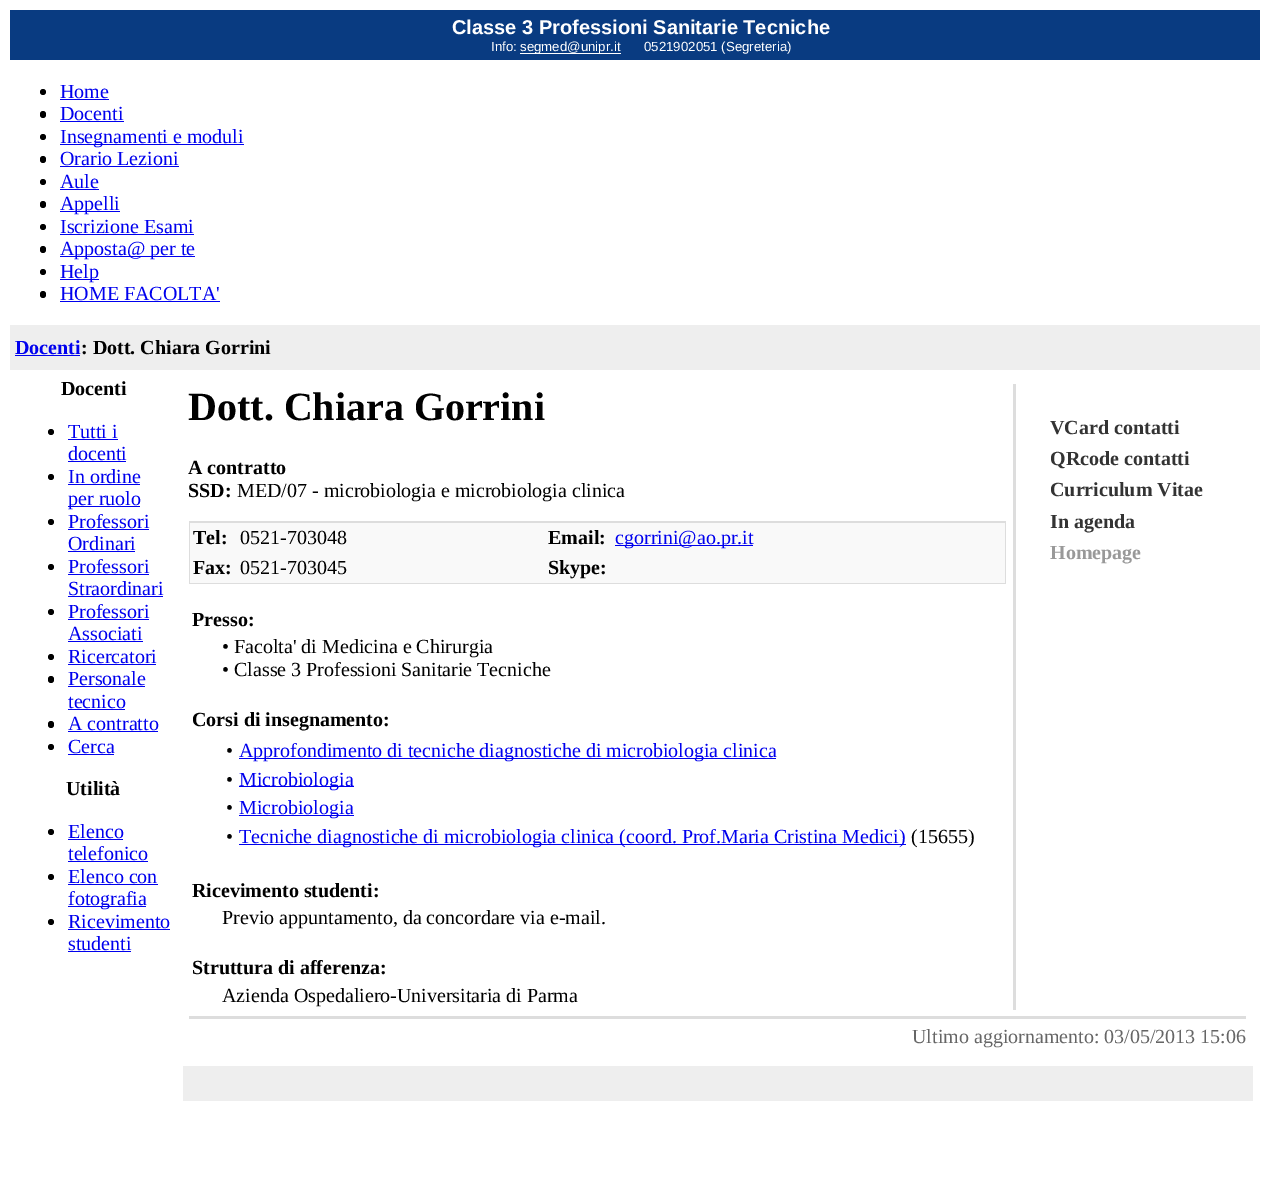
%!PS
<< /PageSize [1269 1194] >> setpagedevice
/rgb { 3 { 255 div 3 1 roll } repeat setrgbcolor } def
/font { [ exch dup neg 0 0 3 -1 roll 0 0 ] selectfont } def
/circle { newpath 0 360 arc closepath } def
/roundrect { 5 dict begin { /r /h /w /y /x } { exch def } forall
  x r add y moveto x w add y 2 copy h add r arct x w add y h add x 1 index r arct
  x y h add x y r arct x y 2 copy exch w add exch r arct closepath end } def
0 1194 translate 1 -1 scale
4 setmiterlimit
255 255 255 rgb
0 0 1269 1194 rectfill
9 59 129 rgb
10 10 1250 50 rectfill
255 255 255 rgb
520 53 101 1 rectfill
0 0 0 rgb
43 92 3 circle fill
0 0 238 rgb
60 99 49 1 rectfill
0 0 0 rgb
40 111 6 7 3 roundrect fill
0 0 238 rgb
60 121 64 1 rectfill
0 0 0 rgb
43 137 3 circle fill
0 0 238 rgb
60 144 184 1 rectfill
0 0 0 rgb
40 156 6 7 3 roundrect fill
0 0 238 rgb
60 166 119 1 rectfill
0 0 0 rgb
43 182 3 circle fill
0 0 238 rgb
60 189 39 1 rectfill
0 0 0 rgb
40 201 6 7 3 roundrect fill
0 0 238 rgb
60 211 60 1 rectfill
0 0 0 rgb
43 227 3 circle fill
0 0 238 rgb
60 234 134 1 rectfill
0 0 0 rgb
40 246 6 7 3 roundrect fill
0 0 238 rgb
60 256 135 1 rectfill
0 0 0 rgb
43 272 3 circle fill
0 0 238 rgb
60 279 39 1 rectfill
0 0 0 rgb
40 291 6 7 3 roundrect fill
[
  [60 301 160 1 0 0 238]
  [10 325 1250 45 238 238 238]
  [15 355 65 1 0 0 238]
] { aload pop rgb rectfill } forall
0 0 0 rgb
51 432 3 circle fill
0 0 238 rgb
68 439 50 1 rectfill
68 461 58 1 rectfill
0 0 0 rgb
51 477 3 circle fill
0 0 238 rgb
68 484 72 1 rectfill
68 506 72 1 rectfill
0 0 0 rgb
51 522 3 circle fill
0 0 238 rgb
68 529 81 1 rectfill
68 551 67 1 rectfill
0 0 0 rgb
51 567 3 circle fill
0 0 238 rgb
68 574 81 1 rectfill
68 596 95 1 rectfill
0 0 0 rgb
51 612 3 circle fill
0 0 238 rgb
68 619 81 1 rectfill
68 641 75 1 rectfill
0 0 0 rgb
51 657 3 circle fill
0 0 238 rgb
68 664 88 1 rectfill
0 0 0 rgb
48 676 6 7 3 roundrect fill
0 0 238 rgb
68 686 77 1 rectfill
68 709 57 1 rectfill
0 0 0 rgb
48 721 6 7 3 roundrect fill
0 0 238 rgb
68 731 90 1 rectfill
0 0 0 rgb
51 747 3 circle fill
0 0 238 rgb
68 754 46 1 rectfill
0 0 0 rgb
51 832 3 circle fill
0 0 238 rgb
68 839 55 1 rectfill
68 861 80 1 rectfill
0 0 0 rgb
51 877 3 circle fill
0 0 238 rgb
68 884 90 1 rectfill
68 906 78 1 rectfill
0 0 0 rgb
51 922 3 circle fill
[
  [68 929 102 1 0 0 238]
  [68 951 63 1 0 0 238]
  [189 521 817 63 221 221 221]
  [190 523 815 60 249 249 249]
  [615 545 138 1 0 0 238]
  [239 758 537 1 0 0 238]
  [239 786 115 1 0 0 238]
  [239 815 115 1 0 0 238]
  [239 844 667 1 0 0 238]
  [1013 384 3 626 221 221 221]
  [189 1016 1057 3 221 221 221]
  [183 1066 1070 35 238 238 238]
] { aload pop rgb rectfill } forall
/LiberationSans-Bold 20 font
255 255 255 rgb
452 34 moveto (Classe 3 Professioni Sanitarie Tecniche) show
/LiberationSans-Regular 13.25 font
[
  [(Info:) 491 51]
  [(segmed@unipr.it) 520 51]
  [(0521902051 \(Segreteria\)) 644 51]
] { aload pop moveto show } forall
/LiberationSerif-Regular 20 font
0 0 238 rgb
[
  [(Home) 60 98]
  [(Docenti) 60 120]
  [(Insegnamenti e moduli) 60 143]
  [(Orario Lezioni) 60 165]
  [(Aule) 60 188]
  [(Appelli) 60 210]
  [(Iscrizione Esami) 60 233]
  [(Apposta@ per te) 60 255]
  [(Help) 60 278]
  [(HOME FACOLTA') 60 300]
] { aload pop moveto show } forall
/LiberationSerif-Bold 20 font
15 354 moveto (Docenti) show
0 0 0 rgb
81 354 moveto (: Dott. Chiara Gorrini) show
61 395 moveto (Docenti) show
/LiberationSerif-Regular 20 font
0 0 238 rgb
[
  [(Tutti i) 68 438]
  [(docenti) 68 460]
  [(In ordine) 68 483]
  [(per ruolo) 68 505]
  [(Professori) 68 528]
  [(Ordinari) 68 550]
  [(Professori) 68 573]
  [(Straordinari) 68 595]
  [(Professori) 68 618]
  [(Associati) 68 640]
  [(Ricercatori) 68 663]
  [(Personale) 68 685]
  [(tecnico) 68 708]
  [(A contratto) 68 730]
  [(Cerca) 68 753]
] { aload pop moveto show } forall
/LiberationSerif-Bold 20 font
0 0 0 rgb
66 795 moveto (Utilità) show
/LiberationSerif-Regular 20 font
0 0 238 rgb
[
  [(Elenco) 68 838]
  [(telefonico) 68 860]
  [(Elenco con) 68 883]
  [(fotografia) 68 905]
  [(Ricevimento) 68 928]
  [(studenti) 68 950]
] { aload pop moveto show } forall
/LiberationSerif-Bold 40 font
0 0 0 rgb
188 420 moveto (Dott. Chiara Gorrini) show
/LiberationSerif-Bold 20 font
188 474 moveto (A contratto) show
188 497 moveto (SSD:) show
/LiberationSerif-Regular 20 font
237 497 moveto (MED/07 - microbiologia e microbiologia clinica) show
/LiberationSerif-Bold 20 font
193 544 moveto (Tel:) show
/LiberationSerif-Regular 20 font
240 544 moveto (0521-703048) show
/LiberationSerif-Bold 20 font
548 544 moveto (Email:) show
/LiberationSerif-Regular 20 font
0 0 238 rgb
615 544 moveto (cgorrini@ao.pr.it) show
/LiberationSerif-Bold 20 font
0 0 0 rgb
193 574 moveto (Fax:) show
/LiberationSerif-Regular 20 font
240 574 moveto (0521-703045) show
/LiberationSerif-Bold 20 font
548 574 moveto (Skype:) show
192 626 moveto (Presso:) show
/LiberationSerif-Regular 20 font
222 653 moveto (• Facolta' di Medicina e Chirurgia) show
222 676 moveto (• Classe 3 Professioni Sanitarie Tecniche) show
/LiberationSerif-Bold 20 font
192 726 moveto (Corsi di insegnamento:) show
/LiberationSerif-Regular 20 font
226 757 moveto (•) show
0 0 238 rgb
239 757 moveto (Approfondimento di tecniche diagnostiche di microbiologia clinica) show
0 0 0 rgb
226 786 moveto (•) show
0 0 238 rgb
239 786 moveto (Microbiologia) show
0 0 0 rgb
226 814 moveto (•) show
0 0 238 rgb
239 814 moveto (Microbiologia) show
0 0 0 rgb
226 843 moveto (•) show
0 0 238 rgb
239 843 moveto (Tecniche diagnostiche di microbiologia clinica \(coord. Prof.Maria Cristina Medici\)) show
0 0 0 rgb
911 843 moveto (\(15655\)) show
/LiberationSerif-Bold 20 font
192 897 moveto (Ricevimento studenti:) show
/LiberationSerif-Regular 20 font
222 924 moveto (Previo appuntamento, da concordare via e-mail.) show
/LiberationSerif-Bold 20 font
192 974 moveto (Struttura di afferenza:) show
/LiberationSerif-Regular 20 font
222 1002 moveto (Azienda Ospedaliero-Universitaria di Parma) show
/LiberationSerif-Bold 20 font
51 51 51 rgb
[
  [(VCard contatti) 1050 434]
  [(QRcode contatti) 1050 465]
  [(Curriculum Vitae) 1050 496]
  [(In agenda) 1050 528]
] { aload pop moveto show } forall
153 153 153 rgb
1050 559 moveto (Homepage) show
/LiberationSerif-Regular 20 font
102 102 102 rgb
912 1043 moveto (Ultimo aggiornamento: 03/05/2013 15:06) show
showpage
